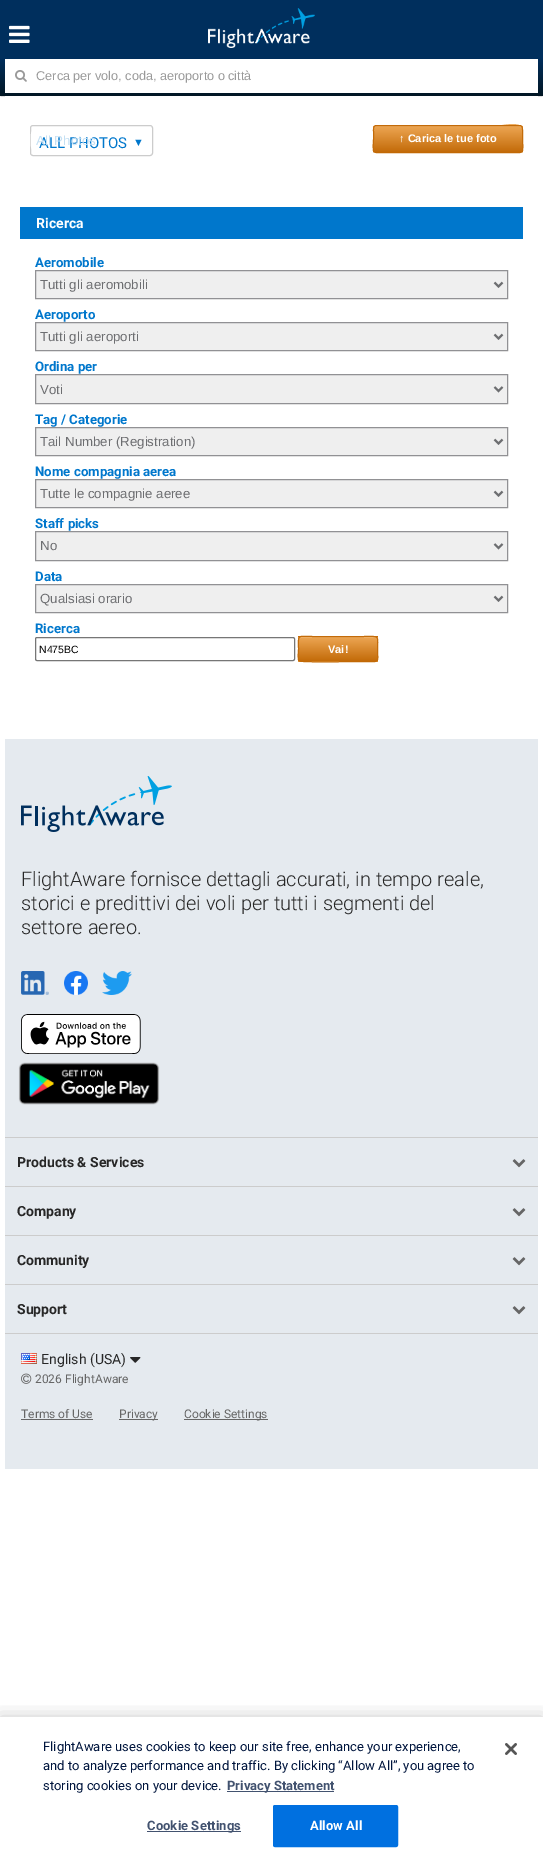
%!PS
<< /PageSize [543 1863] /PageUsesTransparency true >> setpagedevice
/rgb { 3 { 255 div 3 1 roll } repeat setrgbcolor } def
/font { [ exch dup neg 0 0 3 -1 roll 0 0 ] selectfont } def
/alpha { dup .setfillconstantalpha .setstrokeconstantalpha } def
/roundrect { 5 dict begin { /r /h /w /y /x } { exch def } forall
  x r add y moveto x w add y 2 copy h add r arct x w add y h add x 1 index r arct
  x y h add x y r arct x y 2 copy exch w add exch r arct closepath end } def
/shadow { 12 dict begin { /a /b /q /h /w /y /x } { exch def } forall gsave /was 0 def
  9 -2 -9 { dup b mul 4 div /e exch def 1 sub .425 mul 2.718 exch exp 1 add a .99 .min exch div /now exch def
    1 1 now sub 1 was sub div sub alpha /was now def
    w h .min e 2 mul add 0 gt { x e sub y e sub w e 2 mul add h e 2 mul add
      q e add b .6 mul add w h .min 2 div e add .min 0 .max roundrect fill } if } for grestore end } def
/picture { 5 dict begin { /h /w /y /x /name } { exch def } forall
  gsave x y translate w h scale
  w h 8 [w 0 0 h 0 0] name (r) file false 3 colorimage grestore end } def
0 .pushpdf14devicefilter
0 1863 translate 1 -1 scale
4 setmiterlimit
255 255 255 rgb
0 0 543 1863 rectfill
136 136 136 rgb
1 2 541 94 0 0.5 1 shadow
gsave 0 0 moveto 543 0 lineto 543 96 lineto 0 96 lineto closepath clip newpath
<< /ShadingType 2 /ColorSpace /DeviceRGB /Coords [272 0 272 96] /Extend [true true] /Function << /FunctionType 3 /Domain [0 1] /Functions [<< /FunctionType 2 /Domain [0 1] /C0 [0 0.184 0.365] /C1 [0 0.184 0.365] /N 1 >> << /FunctionType 2 /Domain [0 1] /C0 [0 0.184 0.365] /C1 [0.008 0.086 0.141] /N 1 >>] /Bounds [0.6] /Encode [0 1 0 1] >> >> shfill grestore
(img/1.rgb) 9 25 21 18 picture
(img/2.rgb) 208 8 107 40 picture
255 255 255 rgb
5 59 533 34 rectfill
(img/3.rgb) 15 70 12 12 picture
5 96 533 1 rectfill
204 204 204 rgb
30.5 125.5 122 30 2.5 roundrect stroke
gsave
373 125 150 28 3 roundrect clip newpath
gsave 373 126 moveto 523 126 lineto 523 152 lineto 373 152 lineto closepath clip newpath
<< /ShadingType 2 /ColorSpace /DeviceRGB /Coords [374 126 374 152] /Extend [true true] /Function << /FunctionType 2 /Domain [0 1] /C0 [0.929 0.651 0.325] /C1 [0.765 0.42 0.035] /N 1 >> >> shfill grestore
grestore
237 174 99 rgb
376 127 moveto 520 127 lineto 521 127 522 128 522 129 curveto 522 120 499 126 496 126 curveto 375 126 lineto 374 127 374 128 374 129 curveto 374 128 375 127 376 127 curveto closepath fill
194 105 5 rgb
522 152 moveto 520 152.5 lineto 376 152.5 lineto 374 152 lineto stroke
195 107 9 rgb
374 152 moveto 372.5 150 373.5 141.5 373.5 139 curveto 373.5 131.5 lineto 373.5 130 373 125.5 376 125.5 curveto 520 125.5 lineto 523 125.5 522.5 130 522.5 131.5 curveto 522.5 139 lineto 522.5 141.5 523.5 150 522 152 curveto stroke
0 119 204 rgb
20 207 503 32 rectfill
239 239 239 rgb
35.5 270.5 moveto 507.5 270.5 lineto 507.5 298.5 lineto 35.5 298.5 lineto closepath gsave fill grestore
145 145 148 rgb
stroke
109 110 113 rgb
2 setlinewidth
494.5 282.5 moveto 498.5 286.5 lineto 502.5 282.5 lineto stroke
239 239 239 rgb
35.5 322.5 moveto 507.5 322.5 lineto 507.5 350.5 lineto 35.5 350.5 lineto closepath gsave fill grestore
145 145 148 rgb
1 setlinewidth
stroke
109 110 113 rgb
2 setlinewidth
494.5 334.5 moveto 498.5 338.5 lineto 502.5 334.5 lineto stroke
239 239 239 rgb
35.5 374.5 moveto 507.5 374.5 lineto 507.5 403.5 lineto 35.5 403.5 lineto closepath gsave fill grestore
145 145 148 rgb
1 setlinewidth
stroke
109 110 113 rgb
2 setlinewidth
494.5 387 moveto 498.5 391 lineto 502.5 387 lineto stroke
239 239 239 rgb
35.5 427.5 moveto 507.5 427.5 lineto 507.5 455.5 lineto 35.5 455.5 lineto closepath gsave fill grestore
145 145 148 rgb
1 setlinewidth
stroke
109 110 113 rgb
2 setlinewidth
494.5 439.5 moveto 498.5 443.5 lineto 502.5 439.5 lineto stroke
239 239 239 rgb
35.5 479.5 moveto 507.5 479.5 lineto 507.5 507.5 lineto 35.5 507.5 lineto closepath gsave fill grestore
145 145 148 rgb
1 setlinewidth
stroke
109 110 113 rgb
2 setlinewidth
494.5 491.5 moveto 498.5 495.5 lineto 502.5 491.5 lineto stroke
239 239 239 rgb
35.5 531.5 moveto 507.5 531.5 lineto 507.5 560.5 lineto 35.5 560.5 lineto closepath gsave fill grestore
145 145 148 rgb
1 setlinewidth
stroke
109 110 113 rgb
2 setlinewidth
494.5 544 moveto 498.5 548 lineto 502.5 544 lineto stroke
239 239 239 rgb
35.5 584.5 moveto 507.5 584.5 lineto 507.5 612.5 lineto 35.5 612.5 lineto closepath gsave fill grestore
145 145 148 rgb
1 setlinewidth
stroke
109 110 113 rgb
2 setlinewidth
494.5 596.5 moveto 498.5 600.5 lineto 502.5 596.5 lineto stroke
118 118 118 rgb
1 setlinewidth
35.5 637.5 259 23 1.5 roundrect stroke
gsave
298 636 80 26 3 roundrect clip newpath
gsave 298 636 moveto 378 636 lineto 378 637 lineto 298 637 lineto closepath clip newpath
<< /ShadingType 2 /ColorSpace /DeviceRGB /Coords [299 613 299 637] /Extend [true true] /Function << /FunctionType 2 /Domain [0 1] /C0 [0.929 0.651 0.325] /C1 [0.765 0.42 0.035] /N 1 >> >> shfill grestore
gsave 298 637 moveto 378 637 lineto 378 661 lineto 298 661 lineto closepath clip newpath
<< /ShadingType 2 /ColorSpace /DeviceRGB /Coords [299 637 299 661] /Extend [true true] /Function << /FunctionType 2 /Domain [0 1] /C0 [0.929 0.651 0.325] /C1 [0.765 0.42 0.035] /N 1 >> >> shfill grestore
gsave 298 661 moveto 378 661 lineto 378 662 lineto 298 662 lineto closepath clip newpath
<< /ShadingType 2 /ColorSpace /DeviceRGB /Coords [299 661 299 685] /Extend [true true] /Function << /FunctionType 2 /Domain [0 1] /C0 [0.929 0.651 0.325] /C1 [0.765 0.42 0.035] /N 1 >> >> shfill grestore
grestore
237 174 99 rgb
301 638 moveto 375 638 lineto 376 638 377 639 377 640 curveto 377 634 366 637 363 637 curveto 313 637 lineto 310 637 299 634 299 640 curveto 299 639 300 638 301 638 curveto closepath fill
194 105 5 rgb
377 661 moveto 375 661.5 lineto 362.5 661.5 lineto 356 661.5 301.5 662.5 299.5 661 curveto 299 661 lineto stroke
195 107 9 rgb
299 661 moveto 297.5 659 298.5 651.5 298.5 649 curveto 298.5 633.5 296.5 636.5 313.5 636.5 curveto 362.5 636.5 lineto 381 636.5 377.5 634 377.5 652.5 curveto 377.5 654.5 378.5 659 377 661 curveto stroke
229 234 239 rgb
5 739 533 730 rectfill
(img/4.rgb) 21 776 151 56 picture
(img/5.rgb) 21 971 28 24 picture
(img/6.rgb) 64 971 24 24 picture
(img/7.rgb) 102 971 30 24 picture
(img/8.rgb) 21 1014 120 40 picture
(img/9.rgb) 18 1062 142 43 picture
204 204 204 rgb
5 1137 533 1 rectfill
5 1186 533 1 rectfill
(img/10.rgb) 512 1159 14 9 picture
5 1235 533 1 rectfill
(img/10.rgb) 512 1208 14 9 picture
5 1284 533 1 rectfill
(img/10.rgb) 512 1257 14 9 picture
5 1333 533 1 rectfill
(img/10.rgb) 512 1306 14 9 picture
(img/11.rgb) 21 1353 16 11 picture
(img/12.rgb) 130 1357 11 6 picture
(img/13.rgb) 21 1373 11 11 picture
[
  [21 1419 72 1 102 102 102]
  [119 1419 39 1 102 102 102]
  [184 1419 84 1 102 102 102]
] { aload pop rgb rectfill } forall
gsave
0 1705 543 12 rectclip
0 0 0 rgb
0 1717 543 146 0 9 0.2 shadow
grestore
66 82 111 rgb
227 1791 107 1 rectfill
147 1831 94 1 rectfill
0 112 224 rgb
273.5 1805.5 124 41 1.5 roundrect gsave fill grestore
stroke
(img/14.rgb) 505 1743 12 12 picture
/LiberationSans-Regular 12.75 font
153 153 153 rgb
36 80 moveto -0.25 0 32 (Cerca per volo, coda, aeroporto o città) widthshow
/Roboto-Regular 15 font
0 119 204 rgb
39 148 moveto (ALL PHOTOS) show
/LiberationSans-Regular 11 font
133 146 moveto (▼) show
255 255 255 rgb
33 131 moveto 30 131 31 139 31 140 curveto 31 142 30 149 33 150 curveto 152 150 lineto 152 149 lineto 33 149 lineto 32 149 32 149 32 148 curveto 32 133 lineto 32 132 32 132 33 132 curveto 152 132 lineto 152 131 lineto closepath fill
/LiberationSans-Regular 13.25 font
197 224 243 rgb
36 145 moveto (All Photos) show
/LiberationSans-Bold 11 font
255 255 255 rgb
399 142 moveto (↑ Carica le tue foto) show
/Roboto-Bold 14 font
36 228 moveto (Ricerca) show
/Roboto-Bold 13.25 font
0 119 204 rgb
35 267 moveto (Aeromobile) show
/LiberationSans-Regular 13.25 font
109 110 113 rgb
40 289 moveto (Tutti gli aeromobili) show
/Roboto-Bold 13.25 font
0 119 204 rgb
35 319 moveto (Aeroporto) show
/LiberationSans-Regular 13.25 font
109 110 113 rgb
40 341 moveto (Tutti gli aeroporti) show
/Roboto-Bold 13.25 font
0 119 204 rgb
35 371 moveto (Ordina per) show
/LiberationSans-Regular 13.25 font
109 110 113 rgb
40 394 moveto (Voti) show
/Roboto-Bold 13.25 font
0 119 204 rgb
35 424 moveto (Tag / Categorie) show
/LiberationSans-Regular 13.25 font
109 110 113 rgb
40 446 moveto (Tail Number \(Registration\)) show
/Roboto-Bold 13.25 font
0 119 204 rgb
35 476 moveto (Nome compagnia aerea) show
/LiberationSans-Regular 13.25 font
109 110 113 rgb
40 498 moveto (Tutte le compagnie aeree) show
/Roboto-Bold 13.25 font
0 119 204 rgb
35 528 moveto (Staff picks) show
/LiberationSans-Regular 13.25 font
109 110 113 rgb
40 550 moveto (No) show
/Roboto-Bold 13.25 font
0 119 204 rgb
35 581 moveto (Data) show
/LiberationSans-Regular 13.25 font
109 110 113 rgb
40 603 moveto (Qualsiasi orario) show
/Roboto-Bold 13.25 font
0 119 204 rgb
35 633 moveto (Ricerca) show
/LiberationSans-Regular 10.5 font
0 0 0 rgb
39 653 moveto (N475BC) show
/LiberationSans-Bold 11 font
255 255 255 rgb
328 653 moveto (Vai!) show
/Roboto-Light 20 font
39 39 39 rgb
[
  [(FlightAware fornisce dettagli accurati, in tempo reale,) 21 886]
  [(storici e predittivi dei voli per tutti i segmenti del) 21 910]
  [(settore aereo.) 21 934]
] { aload pop moveto show } forall
/Roboto-Bold 14 font
[
  [(Products & Services) 17 1167]
  [(Company) 17 1216]
  [(Community) 17 1265]
  [(Support) 17 1314]
] { aload pop moveto show } forall
/Roboto-Regular 14 font
41 1364 moveto (English \(USA\)) show
/Roboto-Regular 12 font
102 102 102 rgb
[
  [(2026 FlightAware) 35 1383]
  [(Terms of Use) 21 1418]
  [(Privacy) 119 1418]
  [(Cookie Settings) 184 1418]
] { aload pop moveto show } forall
/Roboto-Regular 13 font
0 21 61 rgb
[
  [(FlightAware uses cookies to keep our site free, enhance your experience,) 43 1751]
  [(and to analyze performance and traffic. By clicking “Allow All”, you agree to) 43 1770]
  [(storing cookies on your device.) 43 1790]
] { aload pop moveto show } forall
/Roboto-Bold 13 font
66 82 111 rgb
227 1790 moveto (Privacy Statement) show
147 1830 moveto 0.1 0 (Cookie Settings) ashow
255 255 255 rgb
310 1830 moveto 0.1 0 (Allow All) ashow
.poppdf14devicefilter showpage
